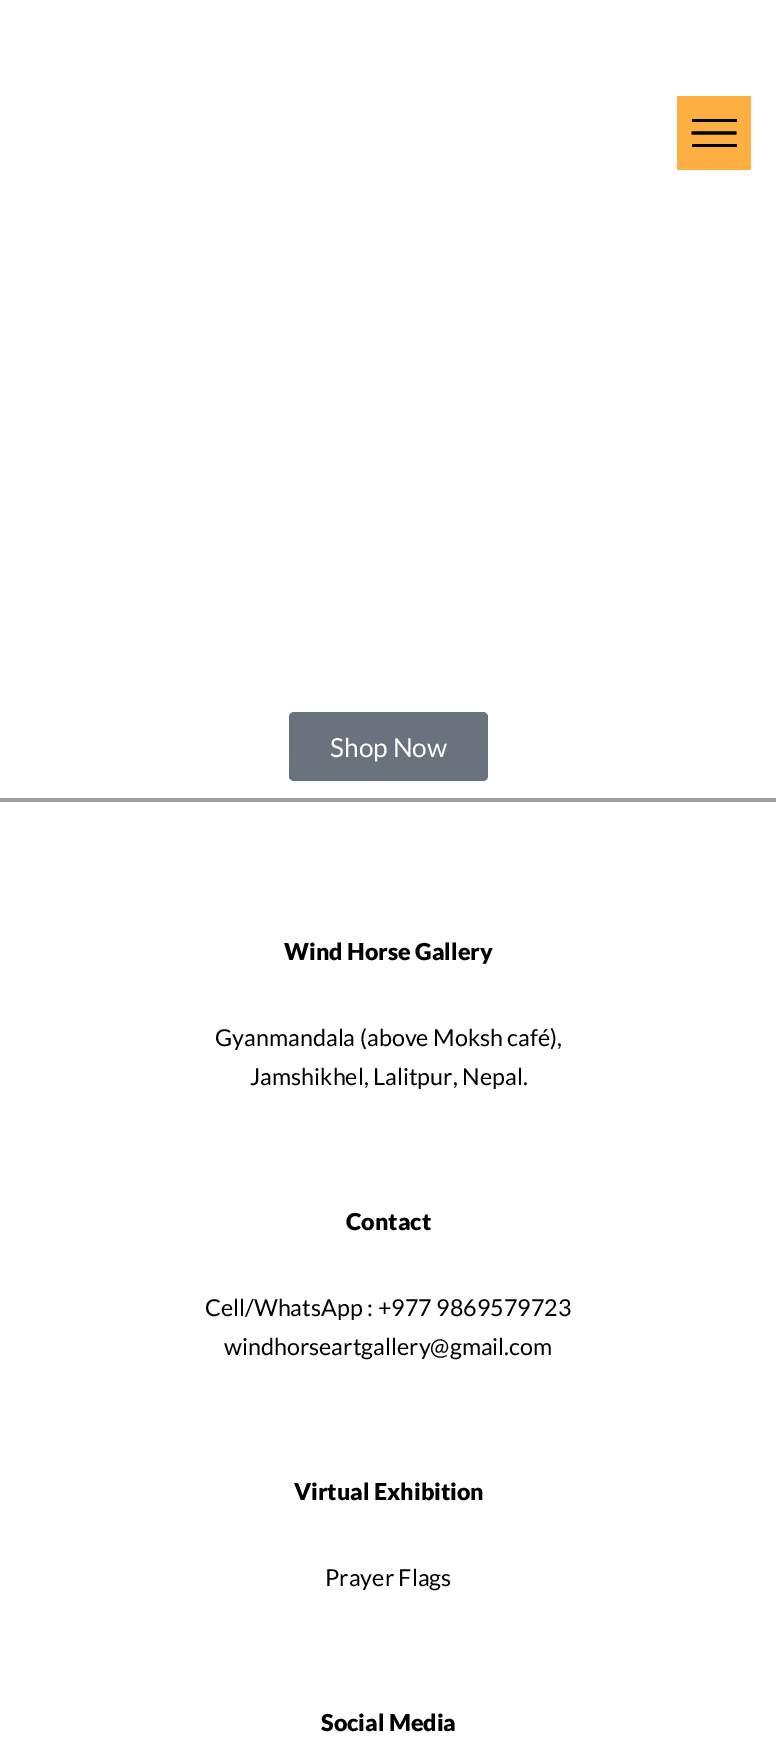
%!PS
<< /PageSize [776 1741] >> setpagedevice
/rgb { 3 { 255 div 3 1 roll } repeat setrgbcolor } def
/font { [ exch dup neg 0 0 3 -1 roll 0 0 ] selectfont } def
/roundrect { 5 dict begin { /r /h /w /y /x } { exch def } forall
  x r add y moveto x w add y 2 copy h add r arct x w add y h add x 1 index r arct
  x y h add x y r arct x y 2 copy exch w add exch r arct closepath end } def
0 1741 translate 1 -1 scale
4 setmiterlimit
255 255 255 rgb
0 0 776 1741 rectfill
[
  [677 96 74 74 253 175 66]
  [692 119 45 3 0 0 0]
  [692 144 45 3 0 0 0]
] { aload pop rgb rectfill } forall
3.2 setlinewidth
691.5 133 moveto 736.5 133 lineto stroke
105 114 125 rgb
289 712 199 69 5 roundrect fill
158 158 158 rgb
0 798 776 4 rectfill
/Lato-Regular 26.25 font
255 255 255 rgb
330 757 moveto (Shop Now) show
/Lato-Black 23.3 font
0 0 0 rgb
284 960 moveto (Wind Horse Gallery) show
/Lato-Regular 23.3 font
215 1046 moveto (Gyanmandala \(above Moksh café\),) show
250 1085 moveto (Jamshikhel, Lalitpur, Nepal.) show
/Lato-Black 23.3 font
346 1230 moveto (Contact) show
/Lato-Regular 23.3 font
205 1316 moveto (Cell/WhatsApp : +977 9869579723) show
224 1355 moveto (windhorseartgallery@gmail.com) show
/Lato-Black 23.3 font
294 1500 moveto (Virtual Exhibition) show
/Lato-Regular 23.3 font
325 1586 moveto (Prayer Flags) show
/Lato-Black 23.3 font
321 1731 moveto (Social Media) show
showpage
